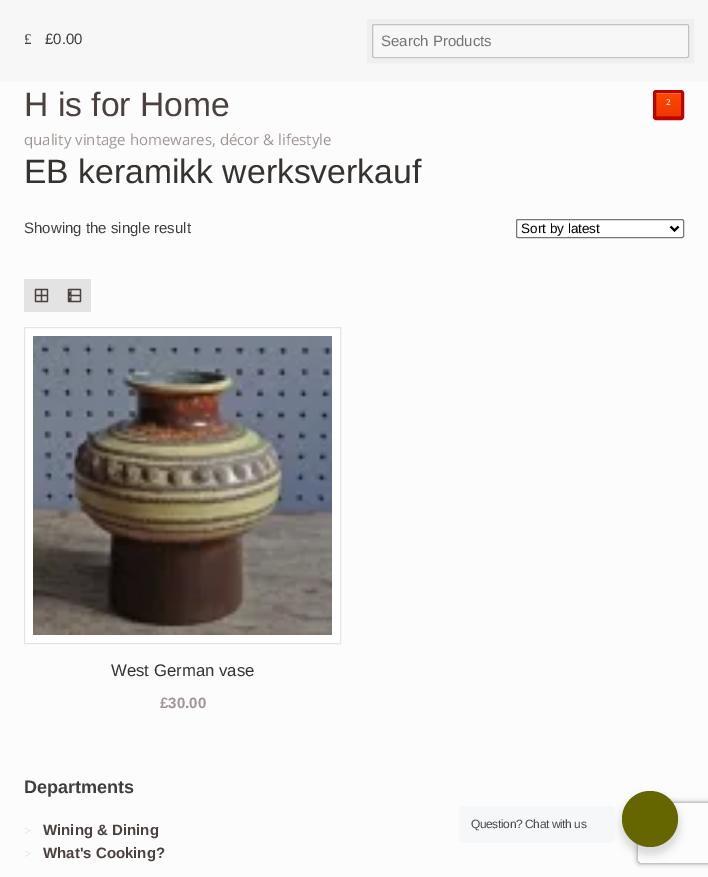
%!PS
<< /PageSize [708 877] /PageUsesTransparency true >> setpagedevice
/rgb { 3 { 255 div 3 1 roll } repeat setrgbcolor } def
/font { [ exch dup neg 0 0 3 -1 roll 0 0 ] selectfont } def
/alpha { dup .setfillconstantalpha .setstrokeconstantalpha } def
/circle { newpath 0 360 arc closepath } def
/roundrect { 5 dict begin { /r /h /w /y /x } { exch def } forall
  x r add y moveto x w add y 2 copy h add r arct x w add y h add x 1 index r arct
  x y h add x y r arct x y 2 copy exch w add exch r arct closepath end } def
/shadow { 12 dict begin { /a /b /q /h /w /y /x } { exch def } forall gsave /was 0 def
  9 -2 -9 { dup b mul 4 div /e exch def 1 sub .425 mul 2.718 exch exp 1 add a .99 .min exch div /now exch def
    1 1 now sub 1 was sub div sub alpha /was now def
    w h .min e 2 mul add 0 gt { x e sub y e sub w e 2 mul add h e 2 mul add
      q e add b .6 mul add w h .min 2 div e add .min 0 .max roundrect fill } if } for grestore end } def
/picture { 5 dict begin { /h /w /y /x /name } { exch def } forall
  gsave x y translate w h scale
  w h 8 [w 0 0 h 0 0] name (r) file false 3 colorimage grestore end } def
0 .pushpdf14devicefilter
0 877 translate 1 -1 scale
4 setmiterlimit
252 252 252 rgb
0 0 708 877 rectfill
247 247 247 rgb
0 0 708 82 rectfill
255 255 255 rgb
372 56 moveto 372 57 372 59 374 59 curveto 687 59 lineto 689 59 689 57 689 56 curveto 689 57 688 58 687 58 curveto 374 58 lineto 373 58 372 57 372 56 curveto closepath fill
0.03 alpha
0 0 0 rgb
5 setlinewidth
369.5 21.5 322 39 rectstroke
1 alpha
196 192 191 rgb
1 setlinewidth
372.5 24.5 316 33 1.5 roundrect stroke
gsave 656 94 moveto 681 94 lineto 681 116 lineto 656 116 lineto closepath clip newpath
<< /ShadingType 2 /ColorSpace /DeviceRGB /Coords [669 93 669 117] /Extend [true true] /Function << /FunctionType 2 /Domain [0 1] /C0 [1 0.282 0] /C1 [0.933 0.216 0] /N 1 >> >> shfill grestore
204 21 0 rgb
656 116 25 1 rectfill
255 145 102 rgb
656 93 25 1 rectfill
187 4 0 rgb
3 setlinewidth
654.5 91.5 28 27 1.5 roundrect stroke
255 255 255 rgb
516.5 219.5 167 18 1.5 roundrect gsave fill grestore
118 118 118 rgb
1 setlinewidth
stroke
0 0 0 rgb
2 setlinewidth
670.5 226.5 moveto 674.5 230.5 lineto 678.5 226.5 lineto stroke
227 227 227 rgb
24 279 67 33 rectfill
(img/1.rgb) 34 288 15 15 picture
(img/2.rgb) 67 288 15 15 picture
255 255 255 rgb
24.5 327.5 moveto 340.5 327.5 lineto 340.5 643.5 lineto 24.5 643.5 lineto closepath gsave fill grestore
232 228 227 rgb
1 setlinewidth
stroke
(img/3.rgb) 33 336 299 299 picture
0 0 0 rgb
620 795 60 60 30 4 0.14 shadow
245 247 249 rgb
459 806 156 37 4 roundrect fill
gsave
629 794 moveto 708 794 lineto 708 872 lineto 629 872 lineto closepath 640 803 moveto 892 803 lineto 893 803 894 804 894 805 curveto 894 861 lineto 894 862 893 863 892 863 curveto 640 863 lineto 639 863 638 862 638 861 curveto 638 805 lineto 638 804 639 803 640 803 curveto closepath eoclip newpath
128 128 128 rgb
638 803 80 60 2 2.5 1 shadow
grestore
102 102 0 rgb
650 819 28 circle fill
/LiberationSerif-Regular 15 font
62 62 62 rgb
24 44 moveto (£) show
/LiberationSans-Regular 15 font
45 44 moveto (£0.00) show
117 117 117 rgb
381 46 moveto (Search Products) show
/LiberationSans-Regular 33.7 font
74 65 62 rgb
24 116 moveto (H is for Home) show
/LiberationSerif-Regular 15 font
255 255 255 rgb
666 109 moveto (²) show
/OpenSans-Regular 15 font
159 150 147 rgb
24 145 moveto (quality vintage homewares, décor & lifestyle) show
/LiberationSans-Regular 33.7 font
54 50 48 rgb
24 183 moveto (EB keramikk werksverkauf) show
/LiberationSans-Regular 15 font
62 62 62 rgb
24 233 moveto (Showing the single result) show
/LiberationSans-Regular 13.5 font
0 0 0 rgb
521 233 moveto (Sort by latest) show
/LiberationSans-Regular 16.75 font
54 50 48 rgb
111 676 moveto (West German vase) show
/LiberationSans-Bold 15 font
159 150 147 rgb
160 708 moveto (£30.00) show
/LiberationSans-Bold 18 font
62 62 62 rgb
24 793 moveto (Departments) show
/LiberationSerif-Regular 13 font
227 218 215 rgb
24 835 moveto (>) show
/LiberationSans-Bold 15 font
74 65 62 rgb
43 835 moveto (Wining & Dining) show
/LiberationSerif-Regular 13 font
227 218 215 rgb
24 858 moveto (>) show
/LiberationSans-Bold 15 font
74 65 62 rgb
43 858 moveto (What's Cooking?) show
/LiberationSans-Regular 12 font
67 71 78 rgb
471 828 moveto -0.4 0 (Question? Chat with us) ashow
.poppdf14devicefilter showpage
